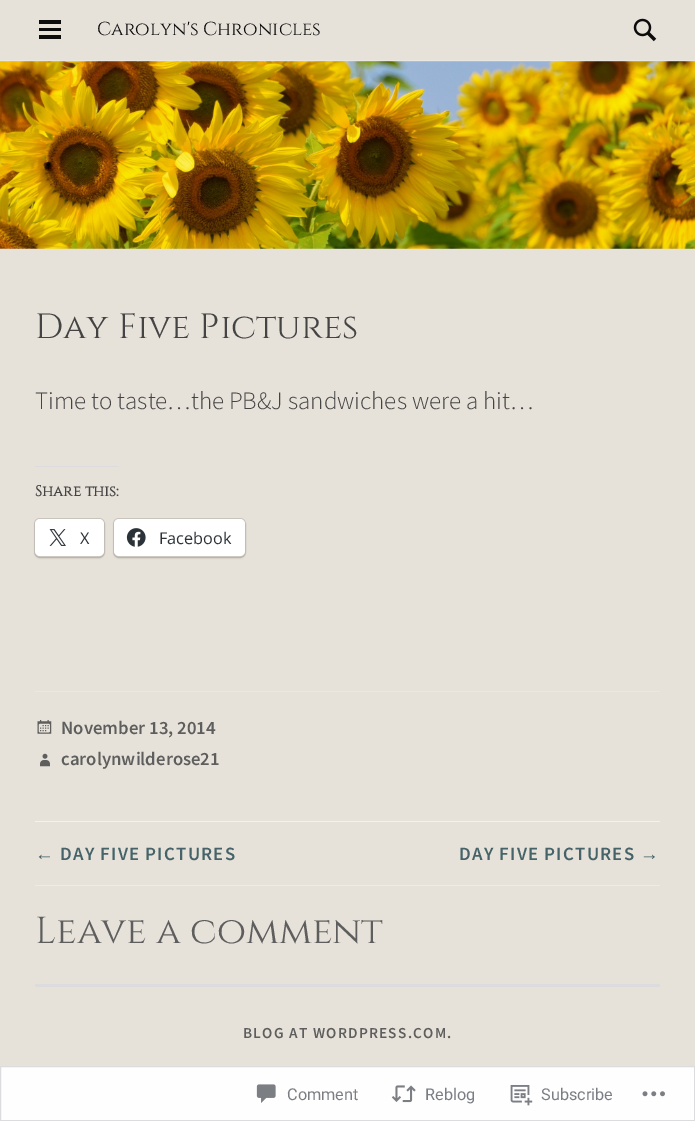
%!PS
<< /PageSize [695 1121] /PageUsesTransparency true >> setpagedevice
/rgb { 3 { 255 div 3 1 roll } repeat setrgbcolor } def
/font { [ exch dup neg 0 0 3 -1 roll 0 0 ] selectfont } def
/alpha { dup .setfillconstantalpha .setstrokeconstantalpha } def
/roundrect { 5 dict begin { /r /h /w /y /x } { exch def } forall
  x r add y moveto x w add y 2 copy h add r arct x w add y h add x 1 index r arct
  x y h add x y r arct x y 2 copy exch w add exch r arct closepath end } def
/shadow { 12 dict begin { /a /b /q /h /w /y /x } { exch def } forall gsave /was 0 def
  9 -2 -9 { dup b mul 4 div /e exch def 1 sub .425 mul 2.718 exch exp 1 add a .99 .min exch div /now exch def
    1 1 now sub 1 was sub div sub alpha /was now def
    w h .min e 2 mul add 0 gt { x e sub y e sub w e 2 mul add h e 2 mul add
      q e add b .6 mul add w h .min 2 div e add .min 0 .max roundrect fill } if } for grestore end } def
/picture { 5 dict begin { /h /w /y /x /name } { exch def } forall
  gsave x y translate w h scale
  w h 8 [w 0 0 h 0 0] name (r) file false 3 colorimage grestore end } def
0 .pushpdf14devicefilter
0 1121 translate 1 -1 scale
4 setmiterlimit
231 226 217 rgb
0 0 695 1121 rectfill
[
  [0 60 695 1 234 231 225]
  [39 20 22 4 12 12 12]
  [39 28 22 3 12 12 12]
  [39 35 22 4 12 12 12]
] { aload pop rgb rectfill } forall
(img/1.rgb) 633 18 24 24 picture
(img/2.rgb) 0 61 695 188 picture
220 220 222 rgb
35 466 84 1 rectfill
203 199 191 rgb
34.5 518.5 70 39 5.5 roundrect stroke
0 0 0 rgb
35 520 69 38 5 1 0.12 shadow
255 255 255 rgb
35 519 69 37 5 roundrect fill
(img/3.rgb) 49 529 17 17 picture
203 199 191 rgb
113.5 518.5 132 39 5.5 roundrect stroke
0 0 0 rgb
114 520 131 38 5 1 0.12 shadow
255 255 255 rgb
114 519 131 37 5 roundrect fill
(img/4.rgb) 126 528 20 19 picture
234 231 225 rgb
35 691 625 1 rectfill
(img/5.rgb) 37 720 15 14 picture
(img/6.rgb) 40 753 10 14 picture
[
  [35 821 625 1 242 242 242]
  [35 885 625 1 238 235 228]
  [35 984 625 3 220 220 222]
] { aload pop rgb rectfill } forall
255 254 254 rgb
0.5 1066.5 moveto 694.5 1066.5 lineto 694.5 1120.5 lineto 0.5 1120.5 lineto closepath gsave fill grestore
220 220 222 rgb
stroke
(img/7.rgb) 256 1084 20 19 picture
(img/8.rgb) 391 1085 25 18 picture
(img/9.rgb) 510 1085 23 21 picture
(img/10.rgb) 642 1091 23 6 picture
/Cinzel-Regular 18.75 font
12 12 12 rgb
97 35 moveto (Carolyn's Chronicles) show
/Cinzel-Regular 35 font
68 68 68 rgb
35 338 moveto (Day Five Pictures) show
/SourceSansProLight-Light 25 font
35 409 moveto (Time to taste…the PB&J sandwiches were a hit…) show
/Cinzel-Bold 15 font
35 496 moveto (Share this:) show
/OpenSans-Regular 16.25 font
44 51 56 rgb
80 544 moveto (X) show
159 544 moveto (Facebook) show
/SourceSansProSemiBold-SemiBold 18.75 font
94 94 94 rgb
61 734 moveto (November 13, 2014) show
61 765 moveto (carolynwilderose21) show
/LiberationSans-Bold 18.75 font
69 99 104 rgb
35 860 moveto 1.25 0 (←) ashow
/SourceSansProSemiBold-SemiBold 18.75 font
60 860 moveto 1.25 0 (DAY FIVE PICTURES) ashow
459 860 moveto 1.25 0 (DAY FIVE PICTURES) ashow
/LiberationSans-Bold 18.75 font
640 860 moveto 1.25 0 (→) ashow
/Cinzel-Regular 37.5 font
94 94 94 rgb
35 943 moveto (Leave a comment) show
/SourceSansProSemiBold-SemiBold 15.25 font
243 1038 moveto 1.25 0 (BLOG AT WORDPRESS.COM.) ashow
/Roboto-Regular 16.25 font
122 126 132 rgb
[
  [(Comment) 287 1100]
  [(Reblog) 425 1100]
  [(Subscribe) 541 1100]
] { aload pop moveto show } forall
.poppdf14devicefilter showpage
